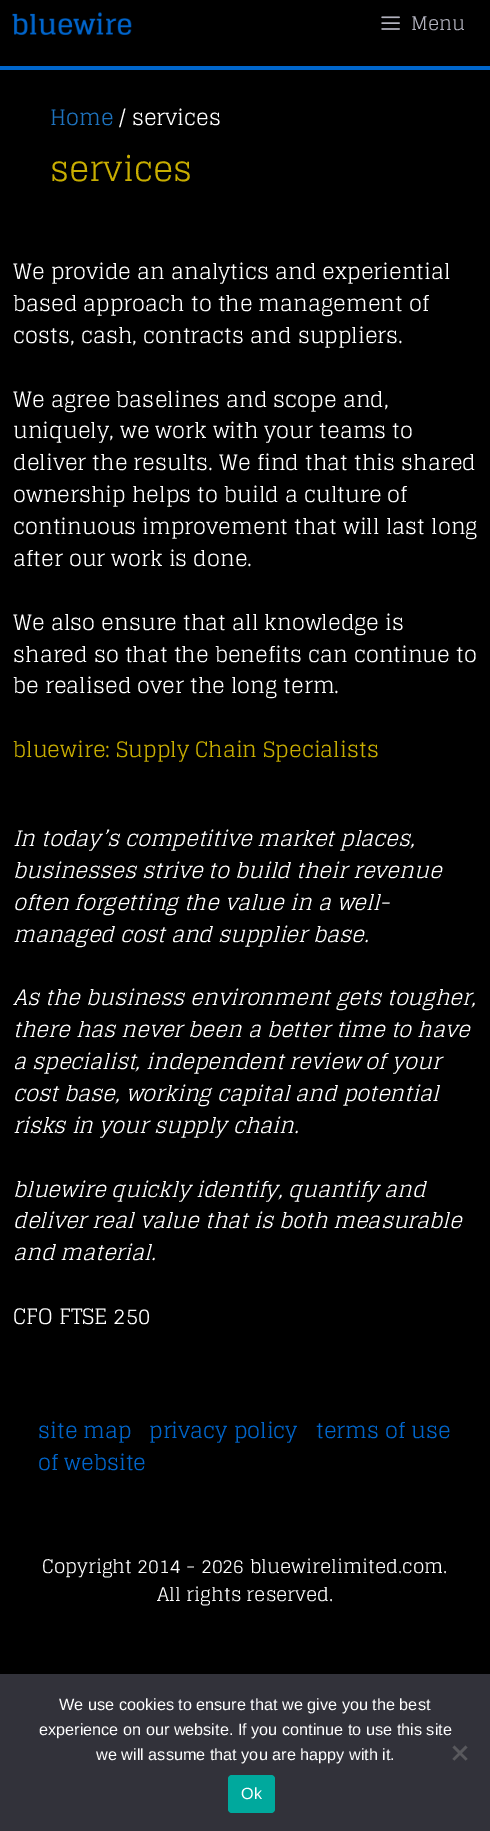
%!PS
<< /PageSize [490 1831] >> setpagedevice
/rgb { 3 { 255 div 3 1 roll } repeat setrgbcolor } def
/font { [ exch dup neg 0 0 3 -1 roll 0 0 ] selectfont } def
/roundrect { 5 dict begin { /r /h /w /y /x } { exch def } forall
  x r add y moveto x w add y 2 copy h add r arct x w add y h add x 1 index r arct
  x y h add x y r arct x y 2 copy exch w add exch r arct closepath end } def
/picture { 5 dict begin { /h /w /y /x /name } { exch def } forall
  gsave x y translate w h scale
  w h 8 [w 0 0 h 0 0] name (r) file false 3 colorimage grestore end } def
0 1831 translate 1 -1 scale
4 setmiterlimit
0 0 0 rgb
0 0 490 1831 rectfill
(img/1.rgb) 12 12 120 23 picture
(img/2.rgb) 381 16 19 14 picture
0 102 204 rgb
0 66 490 4 rectfill
50 50 58 rgb
0 1674 490 157 rectfill
89 89 93 rgb
465.5 1745.5 moveto 467.5 1747.5 lineto 454.5 1760.5 lineto 452.5 1759 lineto closepath fill
452.5 1747.5 moveto 454.5 1745.5 lineto 467.5 1759 lineto 465.5 1760.5 lineto closepath fill
0 169 157 rgb
228 1775 47 38 4 roundrect fill
/Glegoo-Regular 18.75 font
178 178 190 rgb
411 30 moveto (Menu) show
/Glegoo-Regular 21.25 font
30 115 190 rgb
50 125 moveto (Home) show
255 255 255 rgb
119 125 moveto (/ services) show
/Glegoo-Regular 33.75 font
201 174 0 rgb
50 181 moveto (services) show
/Glegoo-Regular 21.25 font
255 255 255 rgb
[
  [(We provide an analytics and experiential) 13 279]
  [(based approach to the management of) 13 311]
  [(costs, cash, contracts and suppliers.) 13 343]
  [(We agree baselines and scope and,) 13 407]
  [(uniquely, we work with your teams to) 13 438]
  [(deliver the results. We find that this shared) 13 470]
  [(ownership helps to build a culture of) 13 502]
  [(continuous improvement that will last long) 13 534]
  [(after our work is done.) 13 566]
  [(We also ensure that all knowledge is) 13 630]
  [(shared so that the benefits can continue to) 13 662]
  [(be realised over the long term.) 13 693]
] { aload pop moveto show } forall
201 174 0 rgb
13 757 moveto (bluewire: Supply Chain Specialists) show
/Glegoo-Italic 21.25 font
255 255 255 rgb
[
  [(In today’s competitive market places,) 13 846]
  [(businesses strive to build their revenue) 13 878]
  [(often forgetting the value in a well-) 13 910]
  [(managed cost and supplier base.) 13 942]
  [(As the business environment gets tougher,) 13 1005]
  [(there has never been a better time to have) 13 1037]
  [(a specialist, independent review of your) 13 1069]
  [(cost base, working capital and potential) 13 1101]
  [(risks in your supply chain.) 13 1133]
  [(bluewire quickly identify, quantify and) 13 1197]
  [(deliver real value that is both measurable) 13 1228]
  [(and material.) 13 1260]
] { aload pop moveto show } forall
/Glegoo-Regular 21.25 font
13 1324 moveto (CFO FTSE 250) show
0 102 204 rgb
[
  [(site map) 38 1438]
  [(privacy policy) 149 1438]
  [(terms of use) 316 1438]
  [(of website) 38 1470]
] { aload pop moveto show } forall
/Glegoo-Regular 18.75 font
255 255 255 rgb
42 1573 moveto (Copyright 2014 - 2026 bluewirelimited.com.) show
157 1601 moveto (All rights reserved.) show
/LiberationSans-Regular 16.25 font
[
  [(We use cookies to ensure that we give you the best) 59 1710]
  [(experience on our website. If you continue to use this site) 39 1735]
  [(we will assume that you are happy with it.) 96 1760]
  [(Ok) 241 1799]
] { aload pop moveto show } forall
showpage
